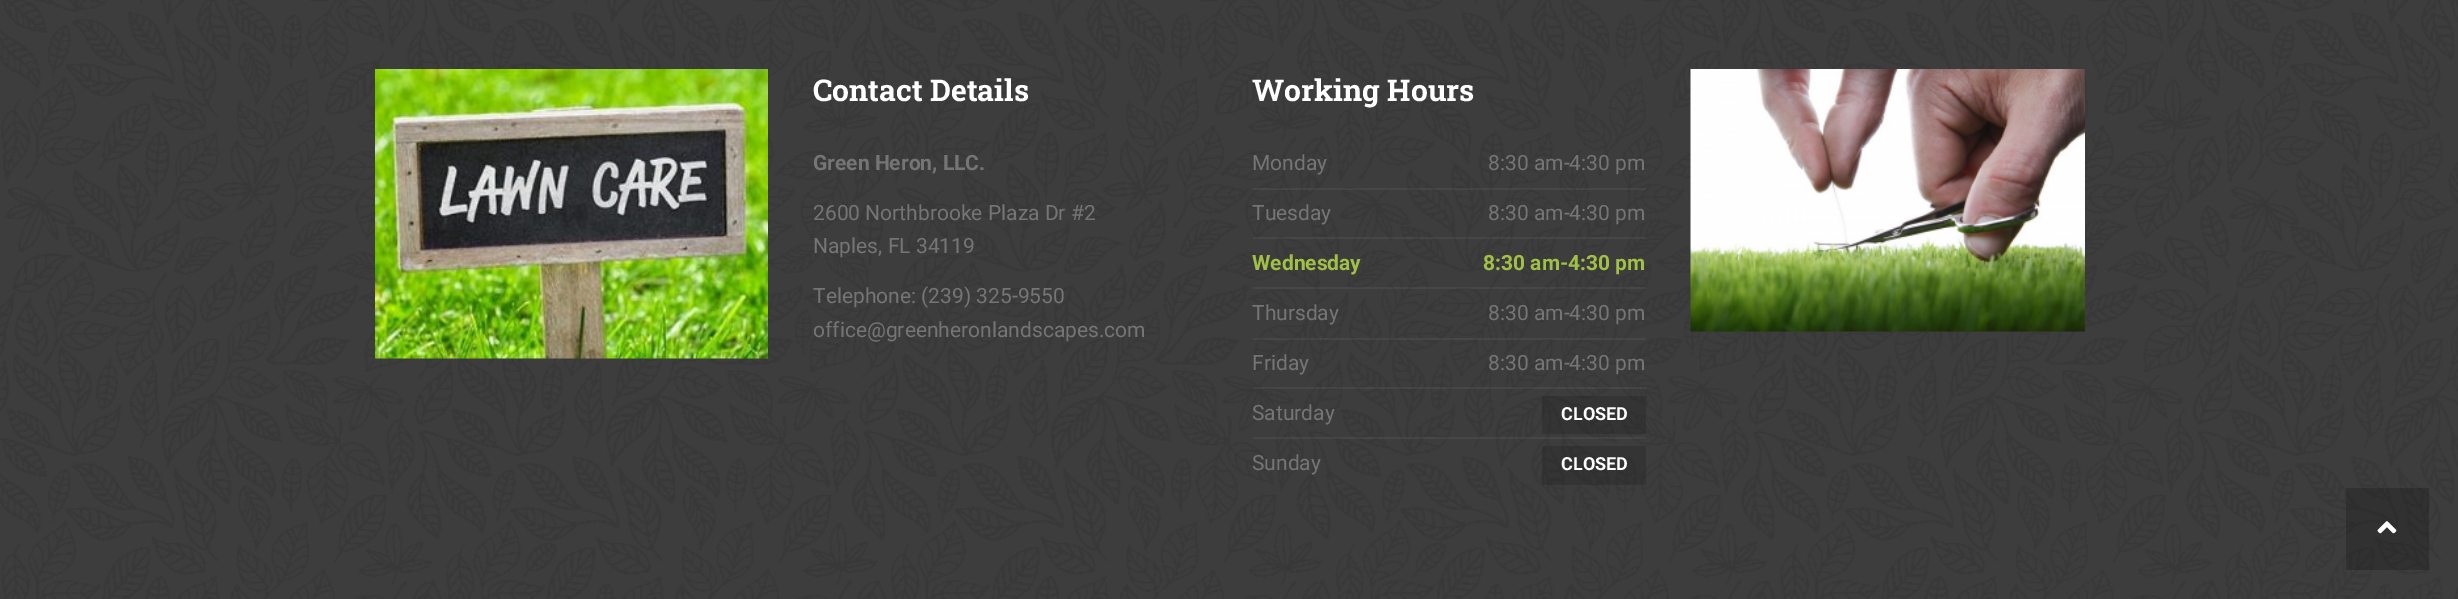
%!PS
<< /PageSize [2458 599] /PageUsesTransparency true >> setpagedevice
/rgb { 3 { 255 div 3 1 roll } repeat setrgbcolor } def
/font { [ exch dup neg 0 0 3 -1 roll 0 0 ] selectfont } def
/alpha { dup .setfillconstantalpha .setstrokeconstantalpha } def
/roundrect { 5 dict begin { /r /h /w /y /x } { exch def } forall
  x r add y moveto x w add y 2 copy h add r arct x w add y h add x 1 index r arct
  x y h add x y r arct x y 2 copy exch w add exch r arct closepath end } def
/picture { 5 dict begin { /h /w /y /x /name } { exch def } forall
  gsave x y translate w h scale
  w h 8 [w 0 0 h 0 0] name (r) file false 3 colorimage grestore end } def
0 .pushpdf14devicefilter
0 599 translate 1 -1 scale
4 setmiterlimit
255 255 255 rgb
0 0 2458 599 rectfill
(img/1.rgb) 0 0 2458 599 picture
(img/2.rgb) 375 69 393 290 picture
0.05 alpha
[
  [1253 188 393 2 255 255 255]
  [1253 237 393 2 255 255 255]
  [1253 287 393 2 255 255 255]
  [1253 338 393 2 255 255 255]
  [1253 387 393 2 255 255 255]
  [1253 437 393 2 255 255 255]
] { aload pop rgb rectfill } forall
0.15 alpha
0 0 0 rgb
1542 396 104 38 1.5 roundrect fill
1542 446 104 39 1.5 roundrect fill
1 alpha
(img/3.rgb) 1690 69 395 263 picture
0.2 alpha
2346 488 83 82 rectfill
1 alpha
(img/4.rgb) 2377 521 20 13 picture
/RobotoSlab-Bold 30 font
255 255 255 rgb
813 101 moveto (Contact Details) show
/Roboto-Bold 21 font
117 117 117 rgb
813 170 moveto (Green Heron, LLC.) show
/Roboto-Regular 21 font
[
  [(2600 Northbrooke Plaza Dr #2) 813 220]
  [(Naples, FL 34119) 813 253]
  [(Telephone: \(239\) 325-9550) 813 303]
  [(office@greenheronlandscapes.com) 813 337]
] { aload pop moveto show } forall
/RobotoSlab-Bold 30 font
255 255 255 rgb
1252 101 moveto (Working Hours) show
/Roboto-Regular 21 font
117 117 117 rgb
[
  [(Monday) 1252 170]
  [(8:30 am-4:30 pm) 1488 170]
  [(Tuesday) 1252 220]
  [(8:30 am-4:30 pm) 1488 220]
] { aload pop moveto show } forall
/Roboto-Bold 21 font
162 192 70 rgb
1252 270 moveto (Wednesday) show
1483 270 moveto (8:30 am-4:30 pm) show
/Roboto-Regular 21 font
117 117 117 rgb
[
  [(Thursday) 1252 320]
  [(8:30 am-4:30 pm) 1488 320]
  [(Friday) 1252 370]
  [(8:30 am-4:30 pm) 1488 370]
  [(Saturday) 1252 420]
] { aload pop moveto show } forall
/Roboto-Bold 18 font
255 255 255 rgb
1561 420 moveto (CLOSED) show
/Roboto-Regular 21 font
117 117 117 rgb
1252 470 moveto (Sunday) show
/Roboto-Bold 18 font
255 255 255 rgb
1561 470 moveto (CLOSED) show
.poppdf14devicefilter showpage
